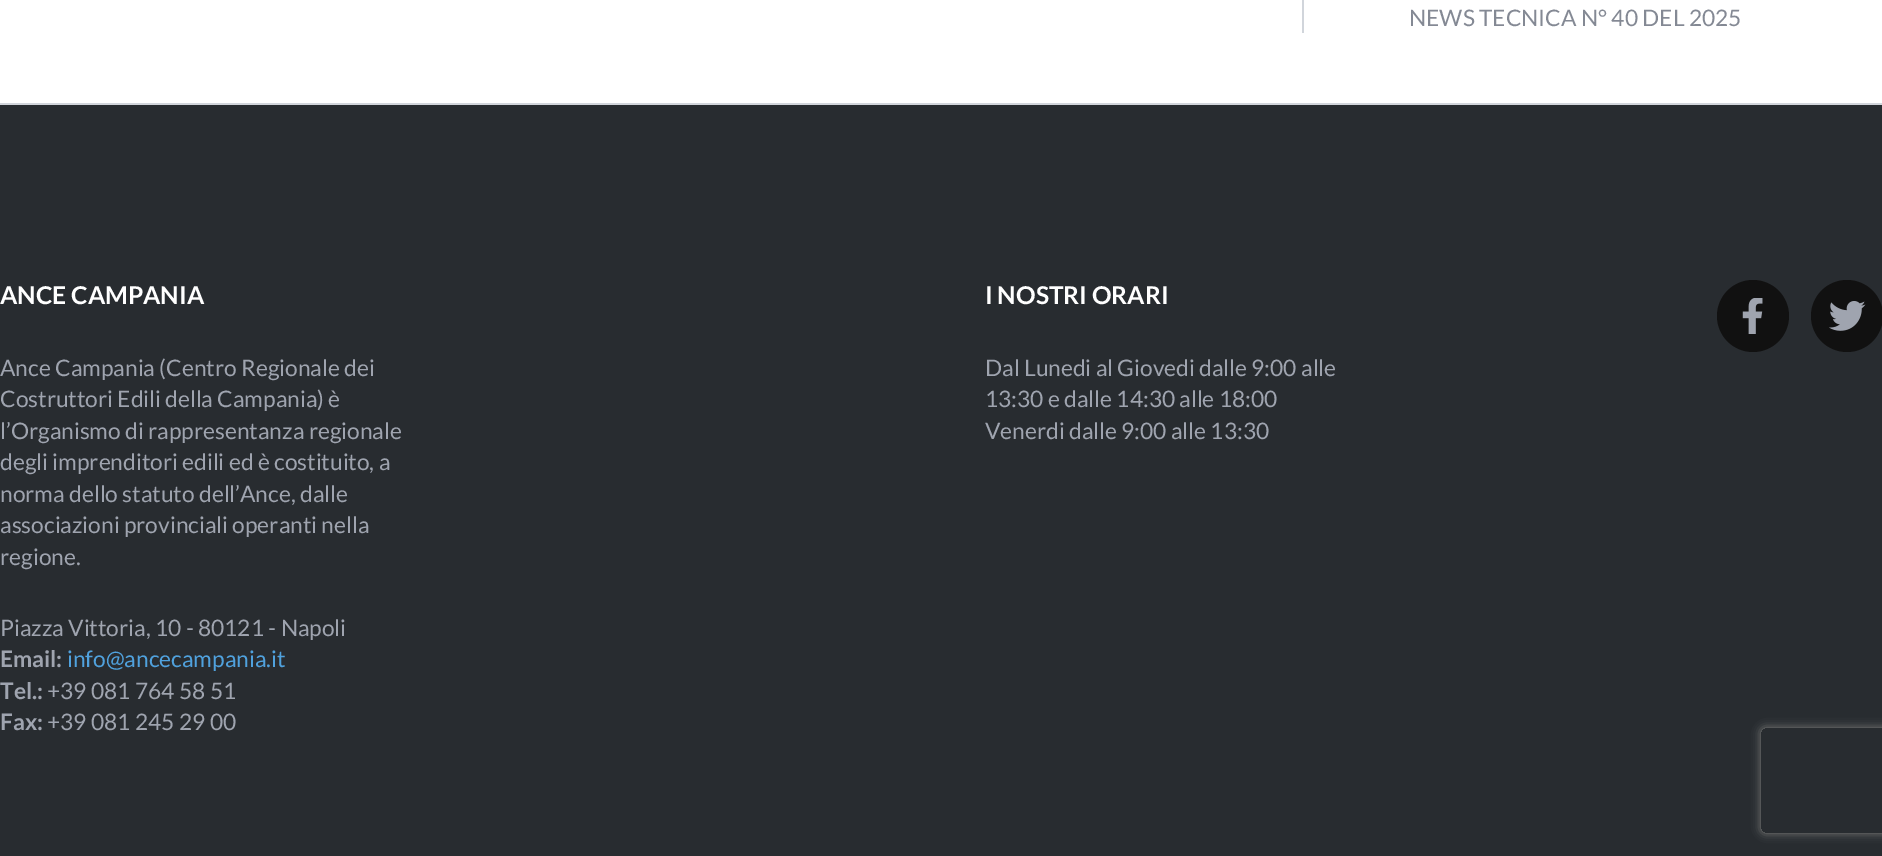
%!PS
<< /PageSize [1882 856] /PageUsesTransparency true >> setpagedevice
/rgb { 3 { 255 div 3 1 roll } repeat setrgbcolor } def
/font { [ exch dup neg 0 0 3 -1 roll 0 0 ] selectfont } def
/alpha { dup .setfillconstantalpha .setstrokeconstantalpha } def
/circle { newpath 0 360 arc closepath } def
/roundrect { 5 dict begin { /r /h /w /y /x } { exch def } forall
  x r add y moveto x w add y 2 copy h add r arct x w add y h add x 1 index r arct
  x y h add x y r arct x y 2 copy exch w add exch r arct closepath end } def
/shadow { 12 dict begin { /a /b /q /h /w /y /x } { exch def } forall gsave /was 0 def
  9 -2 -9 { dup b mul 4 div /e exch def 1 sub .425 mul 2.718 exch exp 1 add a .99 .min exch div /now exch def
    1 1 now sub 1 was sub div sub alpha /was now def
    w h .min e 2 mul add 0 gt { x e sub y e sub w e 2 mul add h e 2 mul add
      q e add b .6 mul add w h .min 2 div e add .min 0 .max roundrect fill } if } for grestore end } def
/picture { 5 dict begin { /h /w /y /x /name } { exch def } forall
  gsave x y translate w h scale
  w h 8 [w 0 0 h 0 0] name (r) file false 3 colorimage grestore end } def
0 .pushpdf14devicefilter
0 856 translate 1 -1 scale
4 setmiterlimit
255 255 255 rgb
0 0 1882 856 rectfill
[
  [1302 0 2 33 209 213 219]
  [0 105 1882 751 40 44 48]
  [0 103 1882 2 209 213 219]
] { aload pop rgb rectfill } forall
17 17 17 rgb
1753 316 36 circle fill
(img/1.rgb) 1742 298 21 36 picture
1847 316 36 circle fill
(img/2.rgb) 1829 301 37 30 picture
gsave
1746 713 moveto 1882 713 lineto 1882 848 lineto 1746 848 lineto closepath 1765 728 moveto 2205 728 lineto 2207 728 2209 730 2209 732 curveto 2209 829 lineto 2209 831 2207 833 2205 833 curveto 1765 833 lineto 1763 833 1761 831 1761 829 curveto 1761 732 lineto 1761 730 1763 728 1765 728 curveto closepath eoclip newpath
128 128 128 rgb
1761 728 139 105 4 4.5 1 shadow
grestore
/Lato-Regular 22.75 font
132 137 148 rgb
1409 26 moveto (NEWS TECNICA N° 40 DEL 2025) show
/Lato-Bold 24.5 font
255 255 255 rgb
0 304 moveto (ANCE CAMPANIA) show
/Lato-Regular 22.75 font
159 164 175 rgb
[
  [(Ance Campania \(Centro Regionale dei) 0 376]
  [(Costruttori Edili della Campania\) è) 0 407]
  [(l’Organismo di rappresentanza regionale) 0 439]
  [(degli imprenditori edili ed è costituito, a) 0 470]
  [(norma dello statuto dell’Ance, dalle) 0 502]
  [(associazioni provinciali operanti nella) 0 533]
  [(regione.) 0 565]
  [(Piazza Vittoria, 10 - 80121 - Napoli) 0 636]
] { aload pop moveto show } forall
/Lato-Bold 22.75 font
0 667 moveto (Email:) show
/Lato-Regular 22.75 font
80 162 222 rgb
67 667 moveto (info@ancecampania.it) show
/Lato-Bold 22.75 font
159 164 175 rgb
0 699 moveto (Tel.:) show
/Lato-Regular 22.75 font
47 699 moveto (+39 081 764 58 51) show
/Lato-Bold 22.75 font
0 730 moveto (Fax:) show
/Lato-Regular 22.75 font
47 730 moveto (+39 081 245 29 00) show
/Lato-Bold 24.5 font
255 255 255 rgb
985 304 moveto (I NOSTRI ORARI) show
/Lato-Regular 22.75 font
159 164 175 rgb
[
  [(Dal Lunedi al Giovedi dalle 9:00 alle) 985 376]
  [(13:30 e dalle 14:30 alle 18:00) 985 407]
  [(Venerdi dalle 9:00 alle 13:30) 985 439]
] { aload pop moveto show } forall
.poppdf14devicefilter showpage
